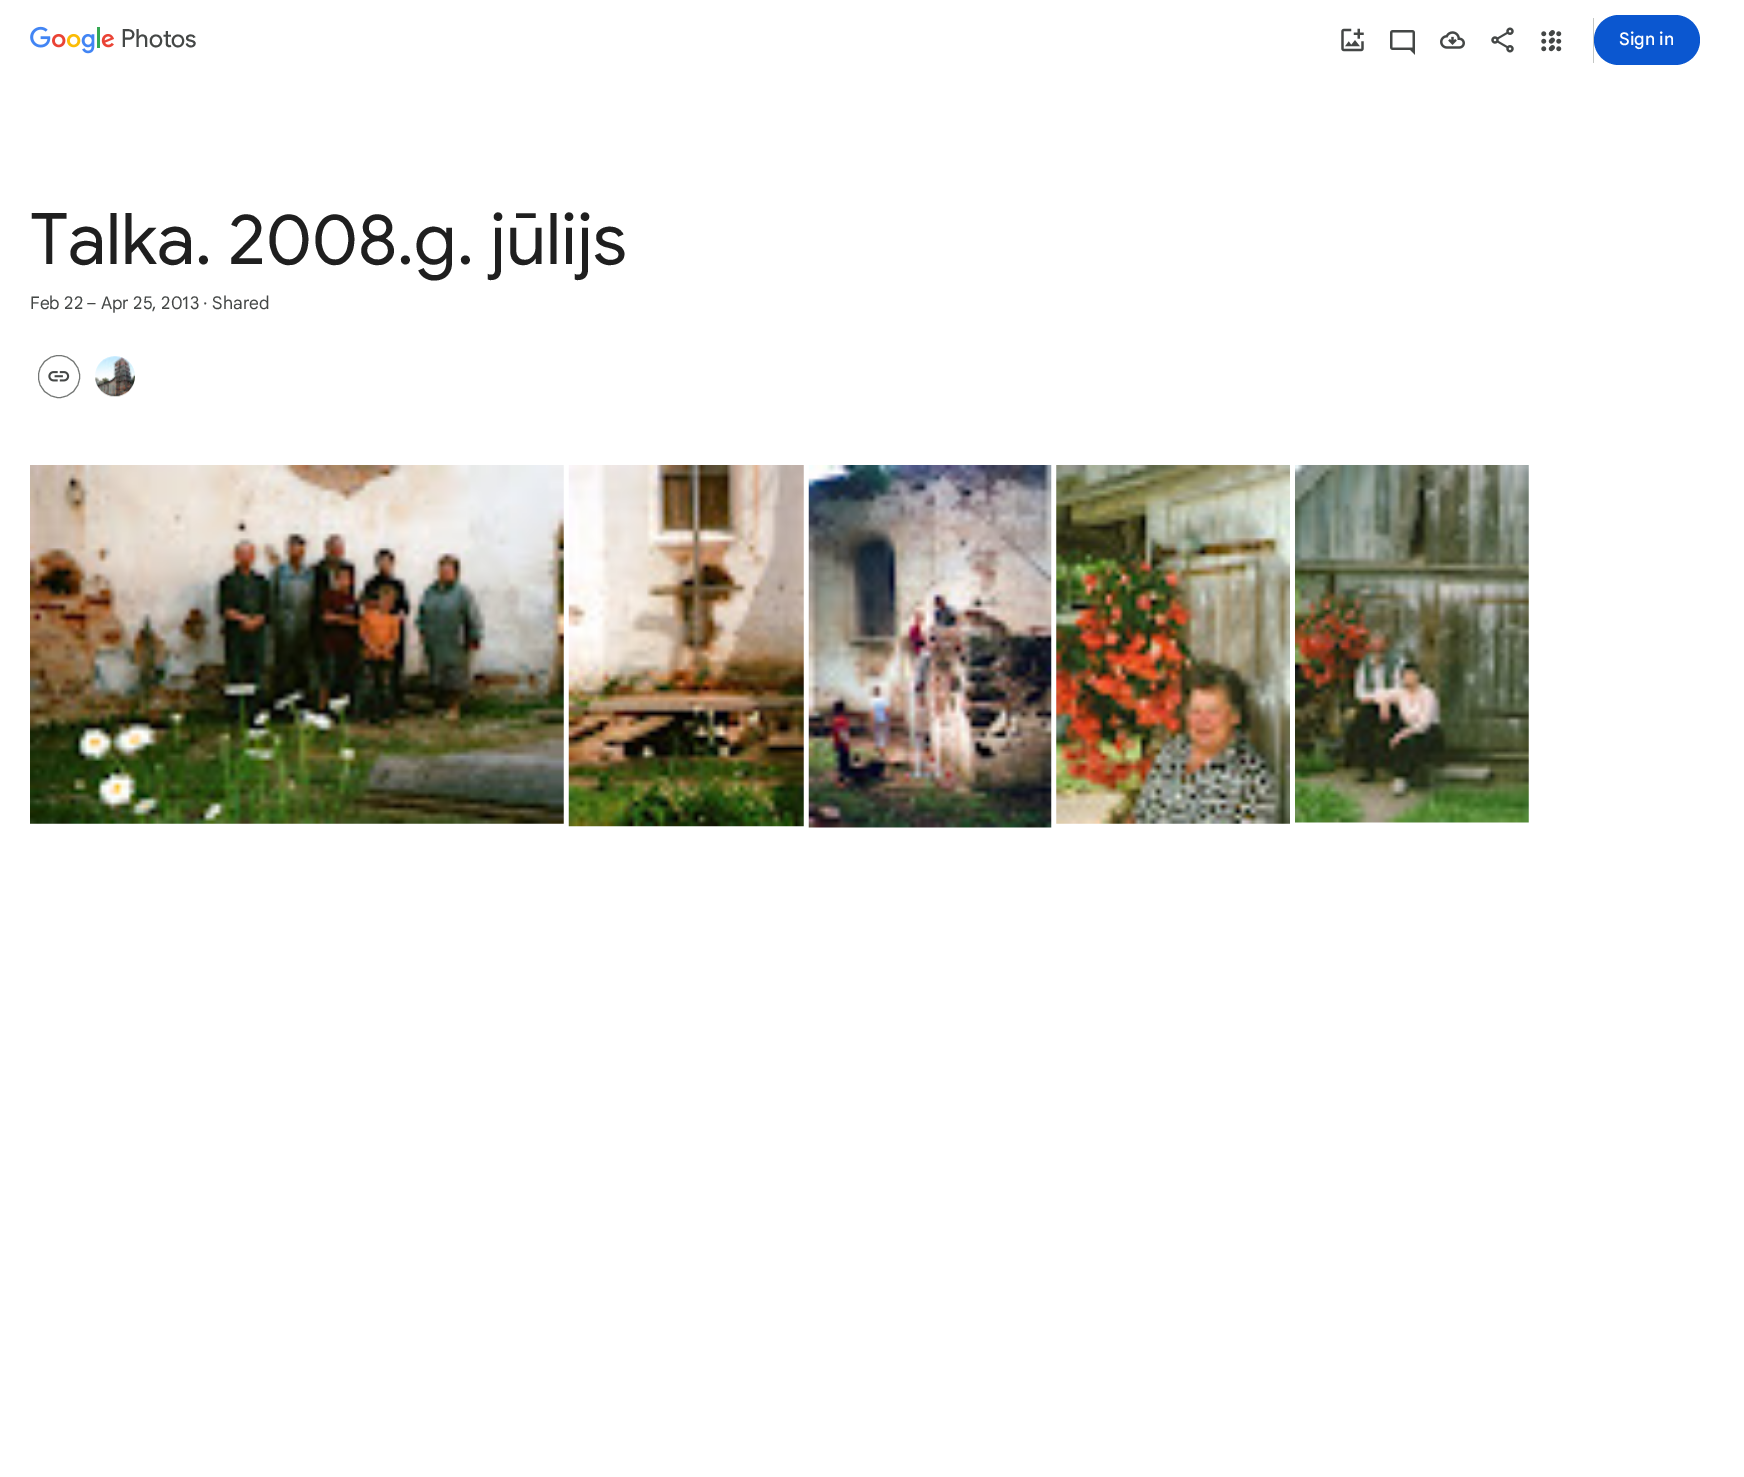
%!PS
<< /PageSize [1744 1477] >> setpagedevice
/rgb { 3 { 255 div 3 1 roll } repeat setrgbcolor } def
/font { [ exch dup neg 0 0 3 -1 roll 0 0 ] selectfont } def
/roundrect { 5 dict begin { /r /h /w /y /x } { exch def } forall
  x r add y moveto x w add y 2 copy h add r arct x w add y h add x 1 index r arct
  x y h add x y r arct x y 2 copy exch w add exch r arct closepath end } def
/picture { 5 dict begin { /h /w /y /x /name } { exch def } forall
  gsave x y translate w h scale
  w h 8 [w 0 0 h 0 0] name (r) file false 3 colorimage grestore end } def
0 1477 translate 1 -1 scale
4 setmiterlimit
255 255 255 rgb
0 0 1744 1477 rectfill
(img/1.rgb) 30 26 84 28 picture
(img/2.rgb) 1341 28 23 24 picture
(img/3.rgb) 1390 30 25 25 picture
(img/4.rgb) 1440 31 25 18 picture
(img/5.rgb) 1491 27 23 26 picture
(img/6.rgb) 1550 30 5 20 picture
196 199 197 rgb
1593 18 1 45 rectfill
116 119 117 rgb
38.5 355.5 41 42 20.5 roundrect stroke
(img/7.rgb) 48 371 22 11 picture
(img/8.rgb) 95 356 40 41 picture
(img/9.rgb) 30 465 534 359 picture
(img/10.rgb) 568 465 236 362 picture
(img/11.rgb) 808 465 244 363 picture
(img/12.rgb) 1056 465 234 359 picture
(img/13.rgb) 1295 465 234 358 picture
(img/14.rgb) 1541 31 21 21 picture
11 87 208 rgb
1594 15 106 50 25 roundrect fill
/ProductSans-Regular 25 font
68 71 70 rgb
121 47 moveto (Photos) show
/GoogleSans-Regular 71.25 font
31 31 31 rgb
30 264 moveto (Talka. 2008.g. jūlijs) show
/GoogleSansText-Regular 17.5 font
68 71 70 rgb
30 309 moveto (Feb 22 – Apr 25, 2013 · Shared) show
/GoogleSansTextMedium-Medium 17.5 font
255 255 255 rgb
1619 45 moveto (Sign in) show
showpage
